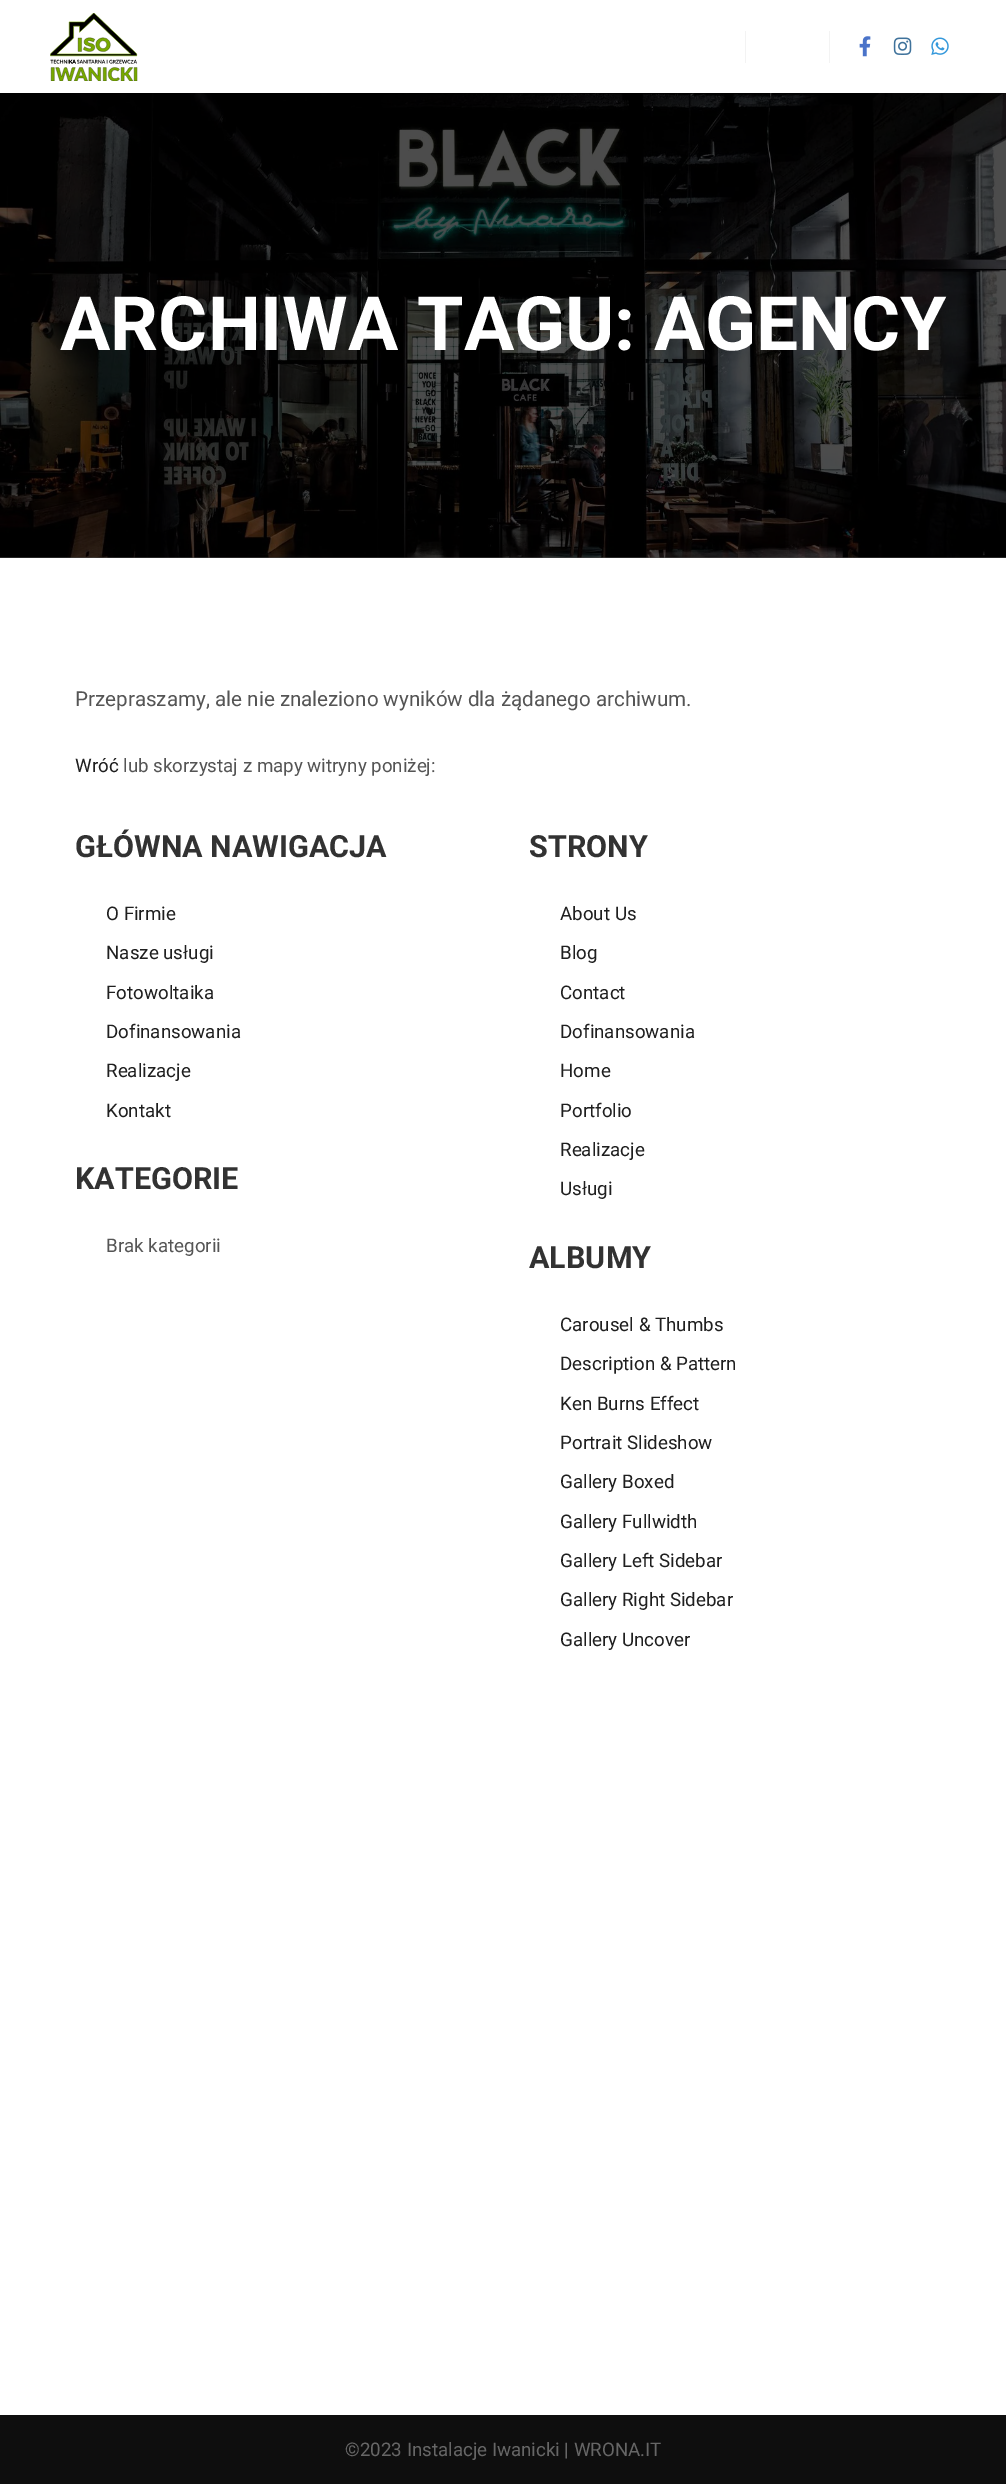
%!PS
<< /PageSize [1006 2484] >> setpagedevice
/rgb { 3 { 255 div 3 1 roll } repeat setrgbcolor } def
/font { [ exch dup neg 0 0 3 -1 roll 0 0 ] selectfont } def
/picture { 5 dict begin { /h /w /y /x /name } { exch def } forall
  gsave x y translate w h scale
  w h 8 [w 0 0 h 0 0] name (r) file false 3 colorimage grestore end } def
0 2484 translate 1 -1 scale
4 setmiterlimit
255 255 255 rgb
0 0 1006 2484 rectfill
(img/1.rgb) 50 13 88 68 picture
243 243 243 rgb
745 31 1 32 rectfill
829 31 1 32 rectfill
(img/2.rgb) 859 36 12 21 picture
(img/3.rgb) 893 37 19 18 picture
(img/4.rgb) 931 37 18 18 picture
77 77 77 rgb
0 557 1006 1 rectfill
(img/5.rgb) 0 93 1006 465 picture
14 14 14 rgb
0 2415 1006 69 rectfill
/Roboto-Bold 75 font
255 255 255 rgb
60 350 moveto (ARCHIWA TAGU: AGENCY) show
/Roboto-Regular 20.6 font
85 85 85 rgb
75 706 moveto (Przepraszamy, ale nie znaleziono wyników dla żądanego archiwum.) show
/Roboto-Regular 18.75 font
31 31 31 rgb
75 772 moveto (Wróć) show
85 85 85 rgb
123 772 moveto (lub skorzystaj z mapy witryny poniżej:) show
/Roboto-Bold 30.5 font
50 50 50 rgb
75 857 moveto (GŁÓWNA NAWIGACJA) show
/Roboto-Regular 18.75 font
31 31 31 rgb
[
  [(O Firmie) 106 920]
  [(Nasze usługi) 106 959]
  [(Fotowoltaika) 106 999]
  [(Dofinansowania) 106 1038]
  [(Realizacje) 106 1077]
  [(Kontakt) 106 1117]
] { aload pop moveto show } forall
/Roboto-Bold 30.5 font
50 50 50 rgb
75 1189 moveto (KATEGORIE) show
/Roboto-Regular 18.75 font
85 85 85 rgb
106 1252 moveto (Brak kategorii) show
/Roboto-Bold 30.5 font
50 50 50 rgb
529 857 moveto (STRONY) show
/Roboto-Regular 18.75 font
31 31 31 rgb
[
  [(About Us) 560 920]
  [(Blog) 560 959]
  [(Contact) 560 999]
  [(Dofinansowania) 560 1038]
  [(Home) 560 1077]
  [(Portfolio) 560 1117]
  [(Realizacje) 560 1156]
  [(Usługi) 560 1195]
] { aload pop moveto show } forall
/Roboto-Bold 30.5 font
50 50 50 rgb
529 1268 moveto (ALBUMY) show
/Roboto-Regular 18.75 font
31 31 31 rgb
[
  [(Carousel & Thumbs) 560 1331]
  [(Description & Pattern) 560 1370]
  [(Ken Burns Effect) 560 1410]
  [(Portrait Slideshow) 560 1449]
  [(Gallery Boxed) 560 1488]
  [(Gallery Fullwidth) 560 1528]
  [(Gallery Left Sidebar) 560 1567]
  [(Gallery Right Sidebar) 560 1606]
  [(Gallery Uncover) 560 1646]
] { aload pop moveto show } forall
102 102 102 rgb
345 2456 moveto (©2023 Instalacje Iwanicki | WRONA.IT) show
showpage
